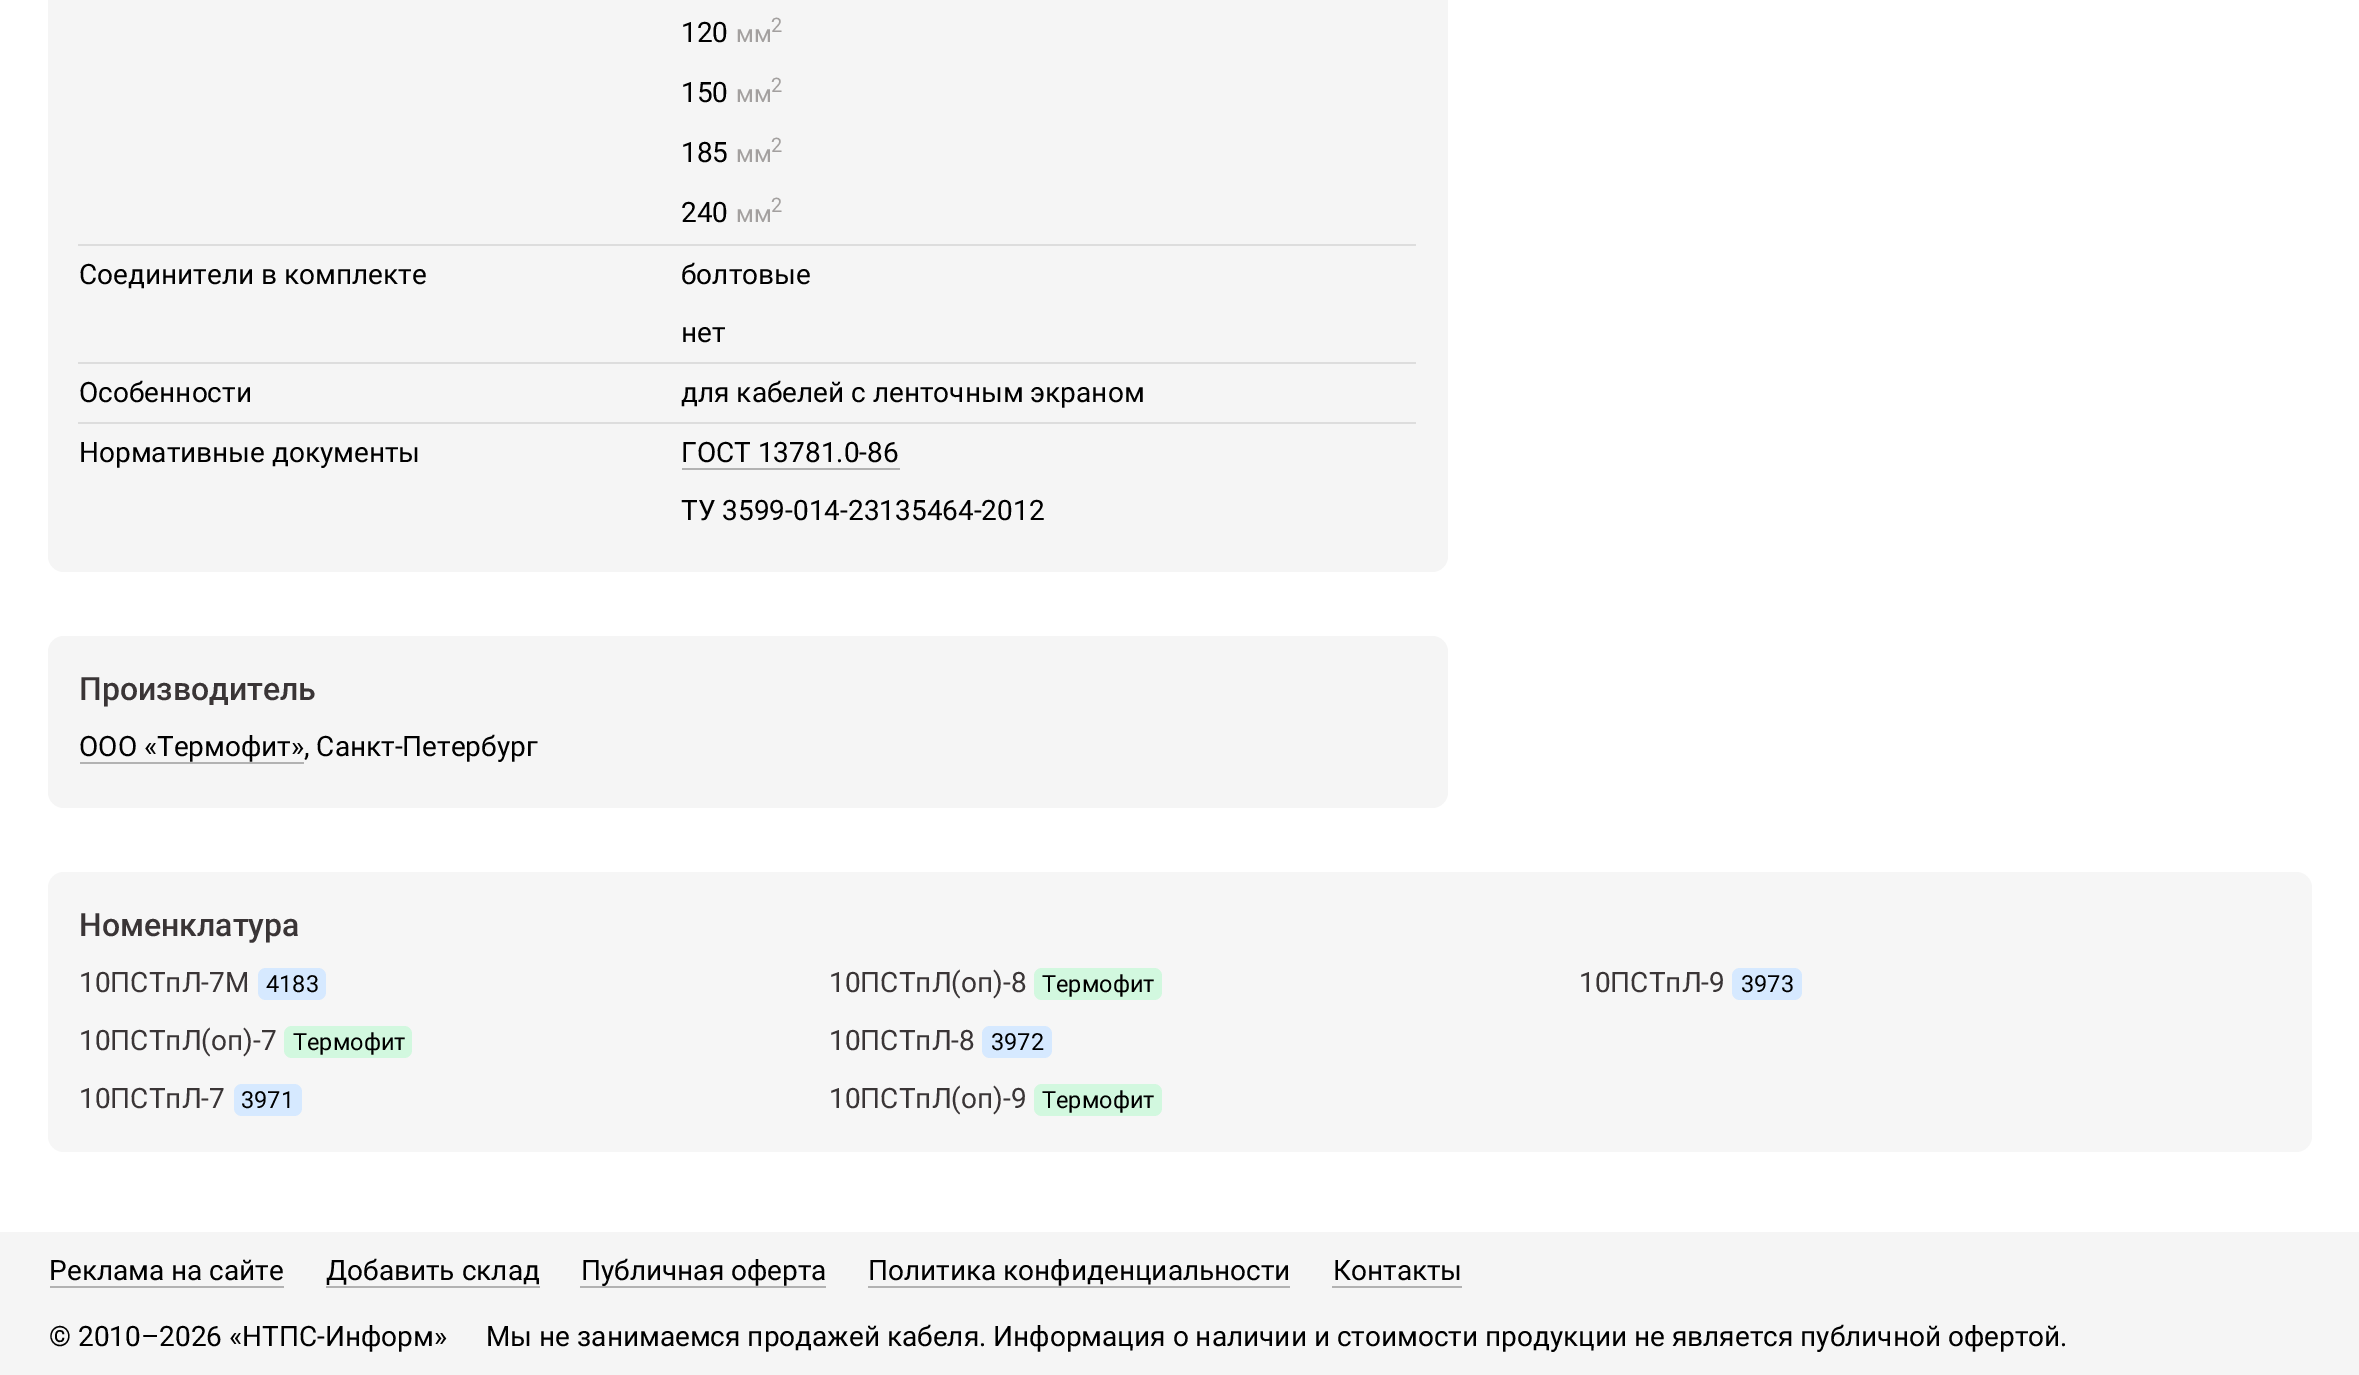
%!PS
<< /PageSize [2359 1375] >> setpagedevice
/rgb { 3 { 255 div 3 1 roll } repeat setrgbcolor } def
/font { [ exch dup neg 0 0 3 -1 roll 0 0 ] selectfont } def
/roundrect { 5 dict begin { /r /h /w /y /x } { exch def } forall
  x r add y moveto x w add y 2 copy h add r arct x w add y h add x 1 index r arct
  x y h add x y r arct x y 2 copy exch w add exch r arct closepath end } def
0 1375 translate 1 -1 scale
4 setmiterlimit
255 255 255 rgb
0 0 2359 1375 rectfill
245 245 245 rgb
48 -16 1400 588 16 roundrect fill
[
  [78 244 1338 2 221 221 221]
  [78 362 1338 2 221 221 221]
  [78 422 1338 2 221 221 221]
  [682 468 218 2 178 178 178]
] { aload pop rgb rectfill } forall
245 245 245 rgb
48 636 1400 172 16 roundrect fill
178 178 178 rgb
80 762 224 2 rectfill
246 246 246 rgb
48 872 2264 280 16 roundrect fill
214 233 255 rgb
258 968 68 32 8 roundrect fill
210 248 223 rgb
1034 968 128 32 8 roundrect fill
214 233 255 rgb
1732 968 70 32 8 roundrect fill
210 248 223 rgb
284 1026 128 32 8 roundrect fill
214 233 255 rgb
982 1026 70 32 8 roundrect fill
234 1084 68 32 8 roundrect fill
210 248 223 rgb
1034 1084 128 32 8 roundrect fill
[
  [0 1232 2359 143 245 245 245]
  [50 1286 234 2 178 178 178]
  [326 1286 214 2 178 178 178]
  [580 1286 246 2 178 178 178]
  [868 1286 422 2 178 178 178]
  [1332 1286 130 2 178 178 178]
] { aload pop rgb rectfill } forall
/Roboto-Regular 28 font
0 0 0 rgb
681 42 moveto (120) show
/Roboto-Regular 24 font
163 160 159 rgb
736 42 moveto (мм) show
/Roboto-Regular 20 font
771 32 moveto (2) show
/Roboto-Regular 28 font
0 0 0 rgb
681 102 moveto (150) show
/Roboto-Regular 24 font
163 160 159 rgb
736 102 moveto (мм) show
/Roboto-Regular 20 font
771 92 moveto (2) show
/Roboto-Regular 28 font
0 0 0 rgb
681 162 moveto (185) show
/Roboto-Regular 24 font
163 160 159 rgb
736 162 moveto (мм) show
/Roboto-Regular 20 font
771 152 moveto (2) show
/Roboto-Regular 28 font
0 0 0 rgb
681 222 moveto (240) show
/Roboto-Regular 24 font
163 160 159 rgb
736 222 moveto (мм) show
/Roboto-Regular 20 font
771 212 moveto (2) show
/Roboto-Regular 28 font
0 0 0 rgb
[
  [(Соединители в комплекте) 79 284]
  [(болтовые) 681 284]
  [(нет) 681 342]
  [(Особенности) 79 402]
  [(для кабелей с ленточным экраном) 681 402]
  [(Нормативные документы) 79 462]
  [(ГОСТ 13781.0-86) 681 462]
  [(ТУ 3599-014-23135464-2012) 681 520]
] { aload pop moveto show } forall
/Roboto-Medium 32 font
58 53 54 rgb
79 700 moveto (Производитель) show
/Roboto-Regular 28 font
0 0 0 rgb
79 756 moveto (ООО «Термофит», Санкт-Петербург) show
/Roboto-Medium 32 font
58 53 54 rgb
79 936 moveto (Номенклатура) show
/Roboto-Regular 28 font
79 992 moveto (10ПСТпЛ-7М) show
/Roboto-Regular 23.5 font
0 0 0 rgb
266 992 moveto (4183) show
/Roboto-Regular 28 font
58 53 54 rgb
829 992 moveto (10ПСТпЛ\(оп\)-8) show
/Roboto-Regular 23.5 font
0 0 0 rgb
1042 992 moveto (Термофит) show
/Roboto-Regular 28 font
58 53 54 rgb
1579 992 moveto (10ПСТпЛ-9) show
/Roboto-Regular 23.5 font
0 0 0 rgb
1741 992 moveto (3973) show
/Roboto-Regular 28 font
58 53 54 rgb
79 1050 moveto (10ПСТпЛ\(оп\)-7) show
/Roboto-Regular 23.5 font
0 0 0 rgb
293 1050 moveto (Термофит) show
/Roboto-Regular 28 font
58 53 54 rgb
829 1050 moveto (10ПСТпЛ-8) show
/Roboto-Regular 23.5 font
0 0 0 rgb
991 1050 moveto (3972) show
/Roboto-Regular 28 font
58 53 54 rgb
79 1108 moveto (10ПСТпЛ-7) show
/Roboto-Regular 23.5 font
0 0 0 rgb
241 1108 moveto (3971) show
/Roboto-Regular 28 font
58 53 54 rgb
829 1108 moveto (10ПСТпЛ\(оп\)-9) show
/Roboto-Regular 23.5 font
0 0 0 rgb
1042 1108 moveto (Термофит) show
/Roboto-Regular 28 font
[
  [(Реклама на сайте) 49 1280]
  [(Добавить склад) 326 1280]
  [(Публичная оферта) 581 1280]
  [(Политика конфиденциальности) 868 1280]
  [(Контакты) 1333 1280]
  [(© 2010–2026 «НТПС-Информ») 49 1346]
  [(Мы не занимаемся продажей кабеля. Информация о наличии и стоимости продукции не является публичной офертой.) 486 1346]
] { aload pop moveto show } forall
showpage
